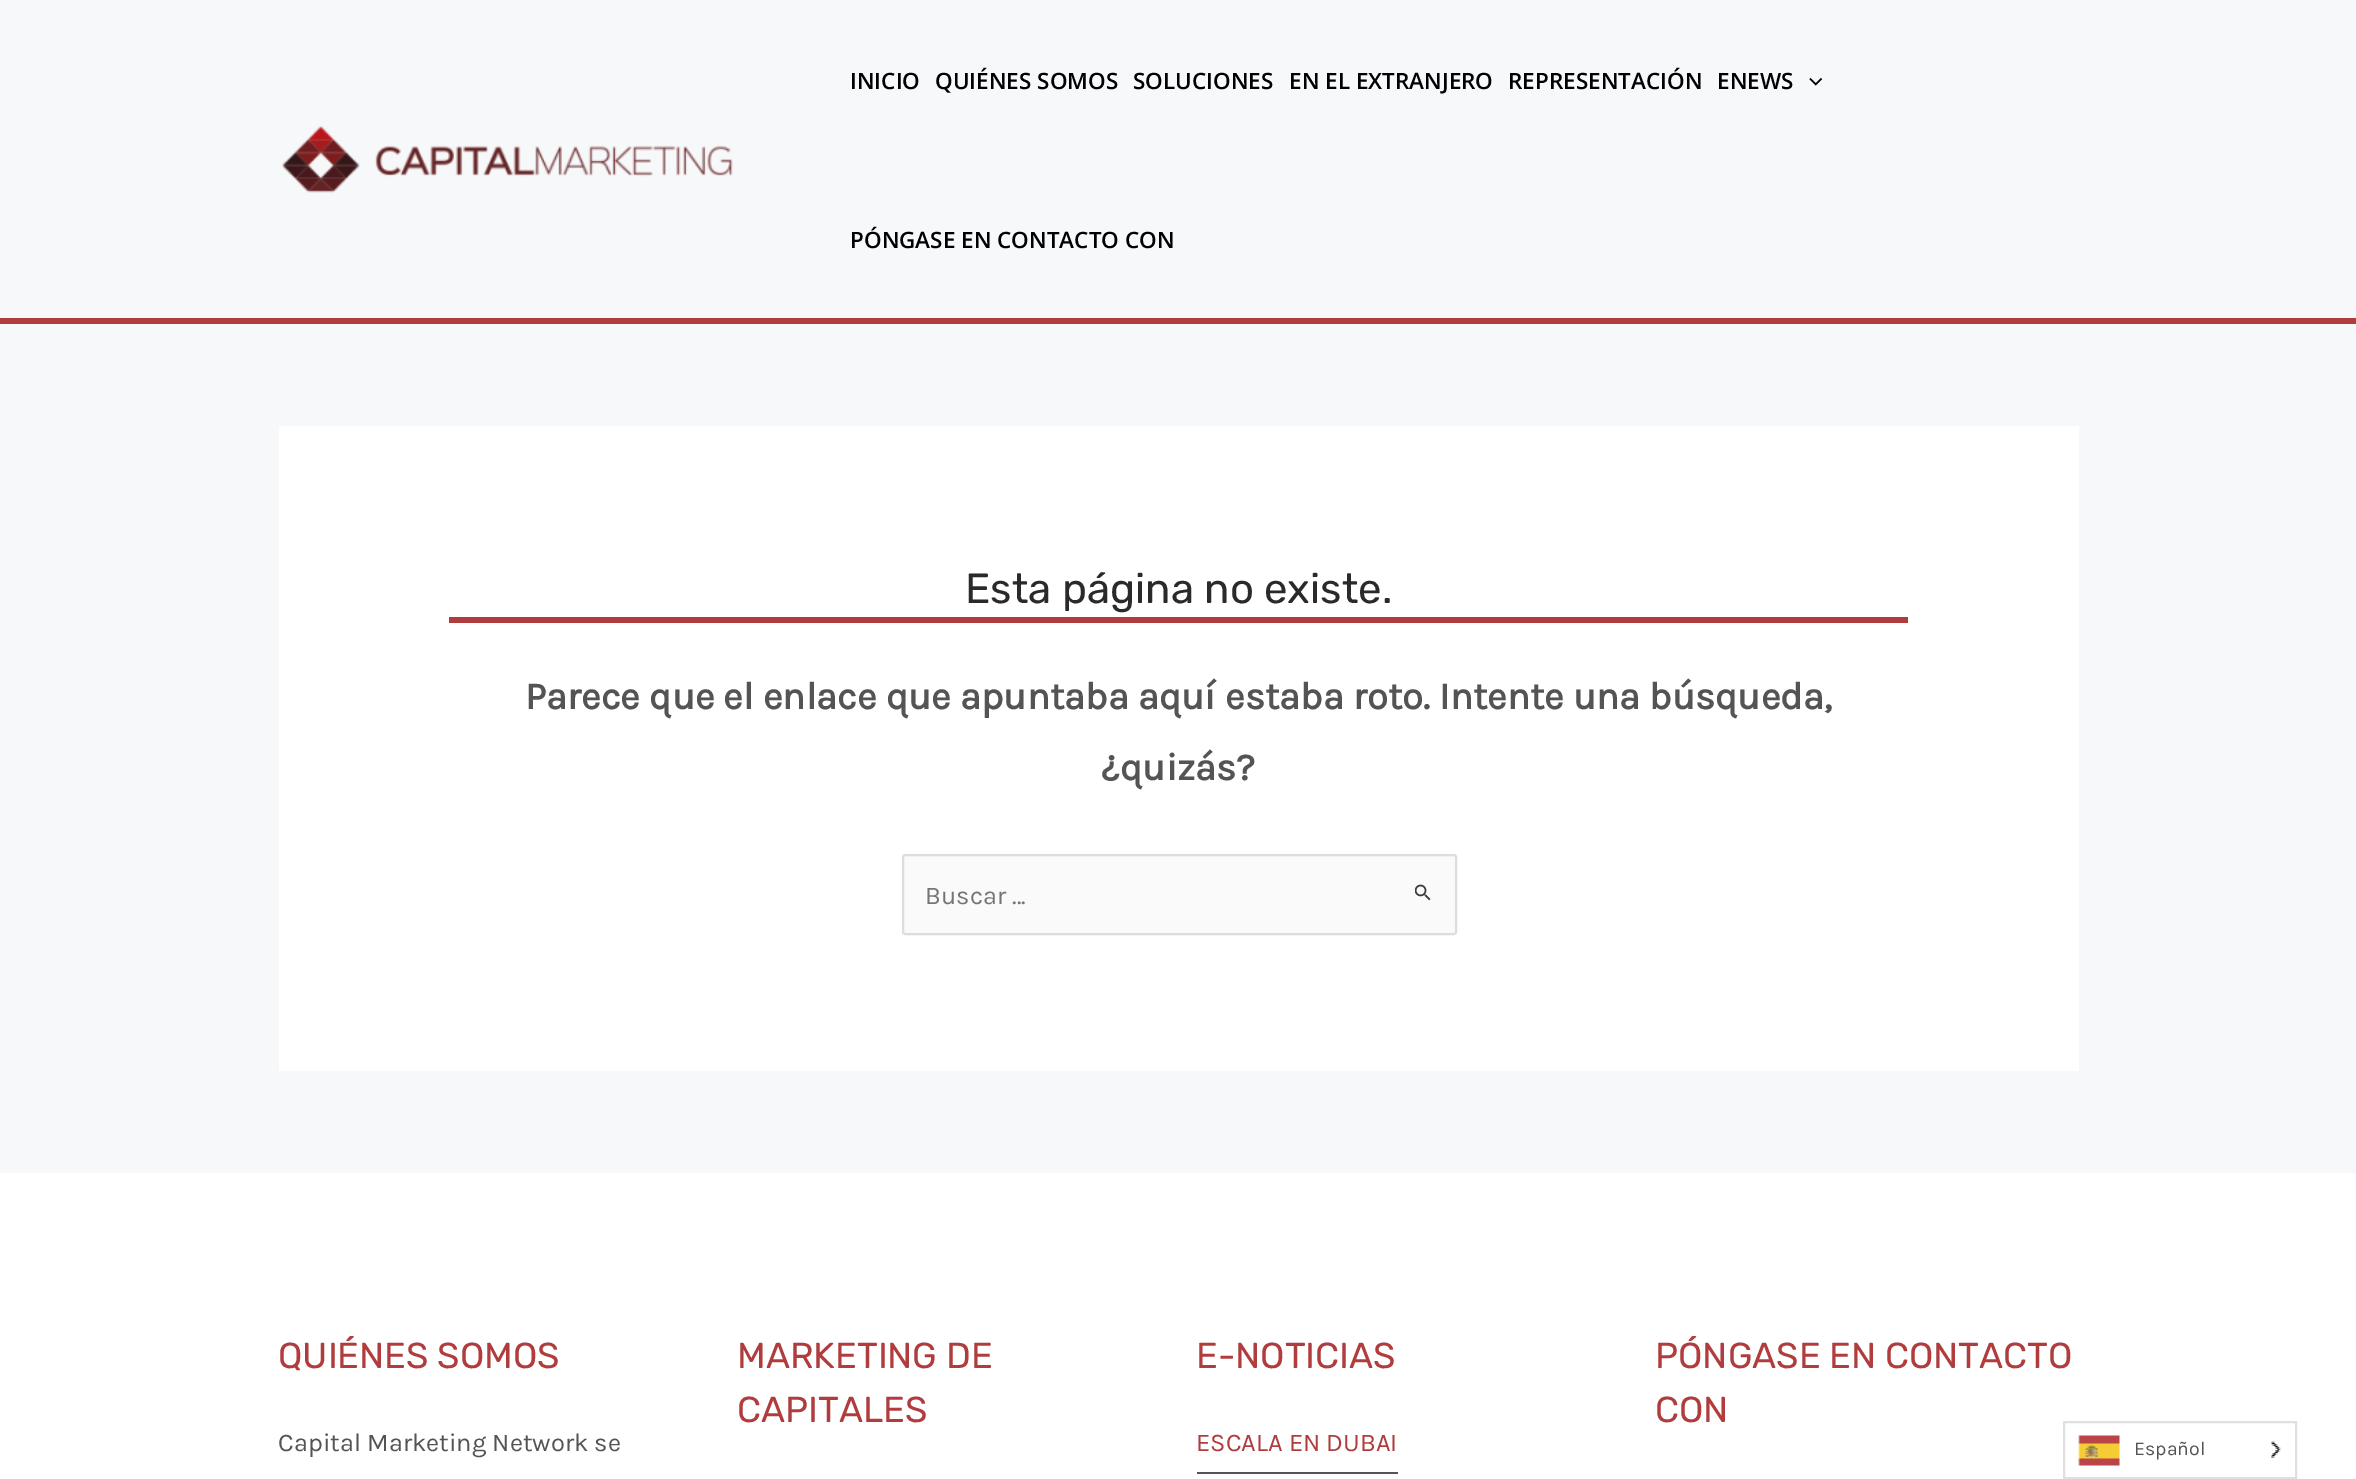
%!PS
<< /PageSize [2356 1479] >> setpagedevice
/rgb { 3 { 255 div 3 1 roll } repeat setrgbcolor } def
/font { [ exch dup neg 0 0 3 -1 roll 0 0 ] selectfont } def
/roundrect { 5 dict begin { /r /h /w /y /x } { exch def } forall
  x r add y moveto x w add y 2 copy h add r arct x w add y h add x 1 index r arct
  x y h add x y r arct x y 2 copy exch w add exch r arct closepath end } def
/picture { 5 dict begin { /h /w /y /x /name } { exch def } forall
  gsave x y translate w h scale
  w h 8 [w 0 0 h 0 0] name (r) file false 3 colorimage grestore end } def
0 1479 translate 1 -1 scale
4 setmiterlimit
247 248 249 rgb
0 0 2356 1479 rectfill
176 60 61 rgb
0 318 2356 6 rectfill
(img/1.rgb) 281 125 452 68 picture
(img/2.rgb) 1809 78 14 8 picture
255 255 255 rgb
279 426 1800 645 rectfill
176 60 61 rgb
449 617 1459 6 rectfill
250 250 250 rgb
903 855 553 79 2 roundrect gsave fill grestore
221 221 221 rgb
2 setlinewidth
stroke
(img/3.rgb) 1415 884 16 17 picture
255 255 255 rgb
0 1173 2356 306 rectfill
84 84 84 rgb
1197 1472 201 2 rectfill
224 224 224 rgb
2064 1422 232 56 rectstroke
(img/4.rgb) 2078 1435 42 31 picture
(img/5.rgb) 2271 1441 10 17 picture
/OpenSans-SemiBold 22.5 font
0 0 0 rgb
[
  [(INICIO) 850 89]
  [(QUIÉNES SOMOS) 935 89]
  [(SOLUCIONES) 1133 89]
  [(EN EL EXTRANJERO) 1289 89]
  [(REPRESENTACIÓN) 1508 89]
  [(ENEWS) 1717 89]
  [(PÓNGASE EN CONTACTO CON) 850 248]
] { aload pop moveto show } forall
/Rubik-Regular 42 font
42 42 42 rgb
965 603 moveto (Esta página no existe.) show
/Karla-Bold 38.25 font
84 84 84 rgb
525 709 moveto (Parece que el enlace que apuntaba aquí estaba roto. Intente una búsqueda,) show
1101 780 moveto (¿quizás?) show
/Karla-Regular 25.5 font
117 117 117 rgb
925 904 moveto (Buscar ...) show
/Rubik-Regular 36 font
176 60 61 rgb
278 1368 moveto (QUIÉNES SOMOS) show
/Karla-Regular 25.5 font
84 84 84 rgb
278 1451 moveto (Capital Marketing Network se) show
/Rubik-Regular 36 font
176 60 61 rgb
[
  [(MARKETING DE) 737 1368]
  [(CAPITALES) 737 1422]
  [(E-NOTICIAS) 1196 1368]
] { aload pop moveto show } forall
/Karla-Regular 25.5 font
1196 1451 moveto (ESCALA EN DUBAI) show
/Rubik-Regular 36 font
1655 1368 moveto (PÓNGASE EN CONTACTO) show
1655 1422 moveto (CON) show
/Karla-Regular 19.5 font
84 84 84 rgb
2134 1455 moveto (Español) show
showpage
